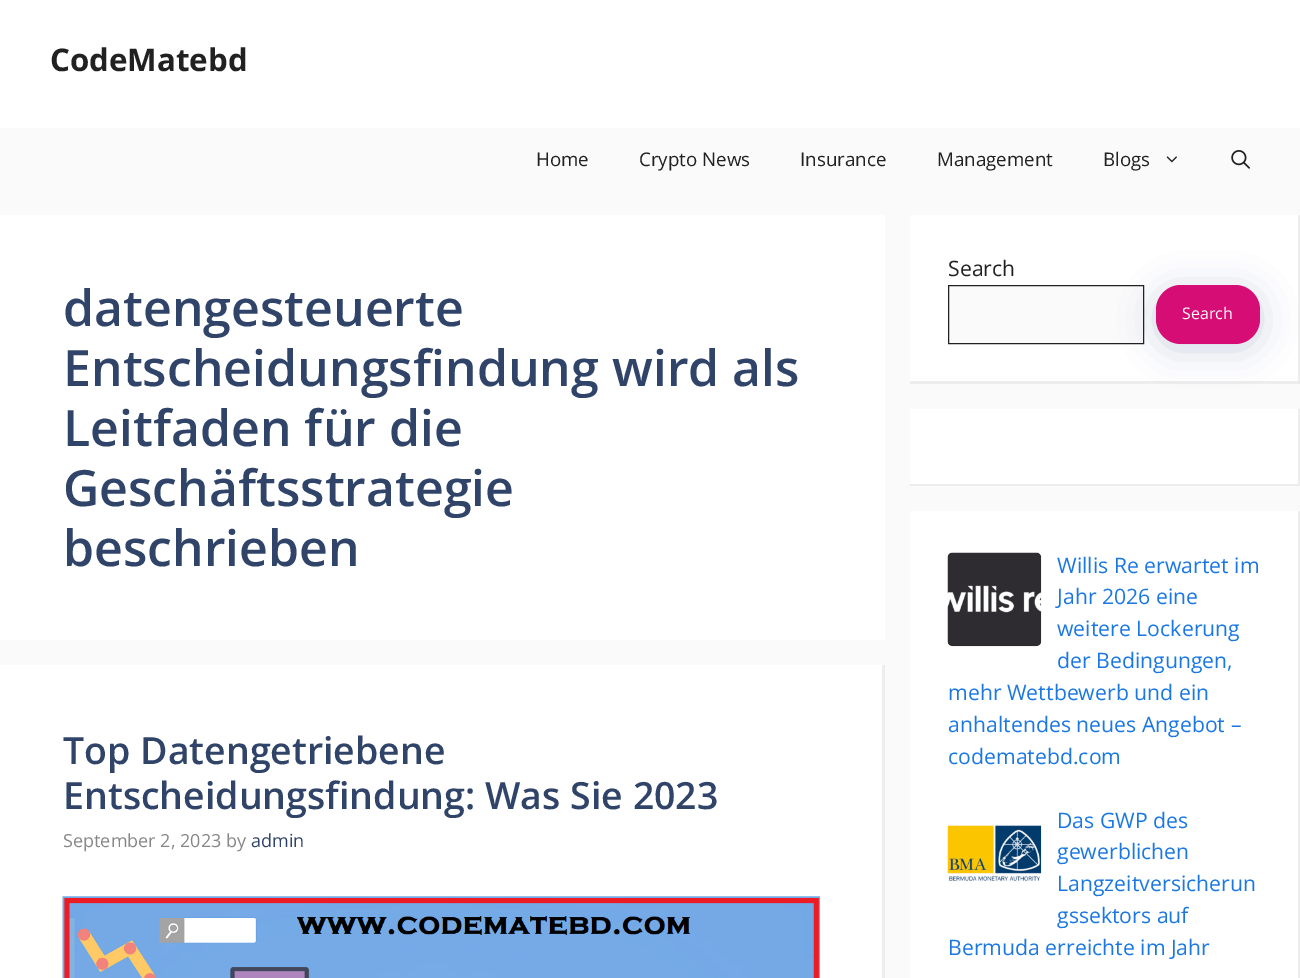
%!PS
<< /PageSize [1300 978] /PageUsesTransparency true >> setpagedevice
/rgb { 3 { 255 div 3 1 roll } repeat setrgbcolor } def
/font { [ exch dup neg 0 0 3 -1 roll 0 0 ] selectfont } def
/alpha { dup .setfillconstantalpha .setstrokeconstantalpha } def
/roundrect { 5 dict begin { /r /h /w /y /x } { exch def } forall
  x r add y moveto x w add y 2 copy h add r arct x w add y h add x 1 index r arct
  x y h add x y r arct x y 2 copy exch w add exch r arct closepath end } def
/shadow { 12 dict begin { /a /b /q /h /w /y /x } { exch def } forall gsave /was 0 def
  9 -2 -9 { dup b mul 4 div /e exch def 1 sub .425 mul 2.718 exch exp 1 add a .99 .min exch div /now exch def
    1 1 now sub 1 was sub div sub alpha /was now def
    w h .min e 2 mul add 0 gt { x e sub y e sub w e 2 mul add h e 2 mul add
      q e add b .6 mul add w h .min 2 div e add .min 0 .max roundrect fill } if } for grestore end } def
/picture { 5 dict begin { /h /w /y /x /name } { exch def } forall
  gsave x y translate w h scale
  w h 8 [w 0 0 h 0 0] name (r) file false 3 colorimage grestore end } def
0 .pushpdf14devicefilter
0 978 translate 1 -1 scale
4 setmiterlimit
250 250 250 rgb
0 0 1300 978 rectfill
255 255 255 rgb
0 0 1300 128 rectfill
(img/1.rgb) 1166 156 11 7 picture
(img/2.rgb) 1231 150 19 19 picture
0 215 885 425 rectfill
0 665 882 313 rectfill
237 237 237 rgb
885 665 moveto 885 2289 lineto 882 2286 lineto 882 665 lineto closepath fill
(img/3.rgb) 62 896 758 82 picture
255 255 255 rgb
910 215 390 169 rectfill
237 237 237 rgb
1300 215 moveto 1300 384 lineto 1298 381 lineto 1298 215 lineto closepath fill
0.07 alpha
0 0 0 rgb
1300 384 moveto 910 384 lineto 910 381 lineto 1298 381 lineto closepath fill
1 alpha
250 250 250 rgb
948.5 285.5 moveto 1143.5 285.5 lineto 1143.5 343.5 lineto 948.5 343.5 lineto closepath gsave fill grestore
33 33 33 rgb
stroke
23 43 99 rgb
1156 290 104 59 25 17.5 0.2 shadow
214 13 116 rgb
1156 285 104 59 25 roundrect fill
255 255 255 rgb
910 409 390 77 rectfill
237 237 237 rgb
1300 409 moveto 1300 486 lineto 1298 484 lineto 1298 409 lineto closepath fill
0.07 alpha
0 0 0 rgb
1300 486 moveto 910 486 lineto 910 484 lineto 1298 484 lineto closepath fill
1 alpha
255 255 255 rgb
910 511 388 467 rectfill
237 237 237 rgb
1300 511 moveto 1300 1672 lineto 1298 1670 lineto 1298 511 lineto closepath fill
(img/4.rgb) 947 552 95 95 picture
(img/5.rgb) 947 825 95 57 picture
/OpenSans-Bold 31.25 font
33 33 33 rgb
50 71 moveto (CodeMatebd) show
/OpenSans-Regular 18.75 font
[
  [(Home) 536 166]
  [(Crypto News) 639 166]
  [(Insurance) 800 166]
  [(Management) 937 166]
  [(Blogs) 1103 166]
] { aload pop moveto show } forall
/OpenSans-SemiBold 50 font
47 68 104 rgb
[
  [(datengesteuerte) 63 326]
  [(Entscheidungsfindung wird als) 63 386]
  [(Leitfaden für die) 63 446]
  [(Geschäftsstrategie) 63 506]
  [(beschrieben) 63 566]
] { aload pop moveto show } forall
/OpenSans-SemiBold 37.5 font
63 764 moveto (Top Datengetriebene) show
63 809 moveto (Entscheidungsfindung: Was Sie 2023) show
/OpenSans-Regular 18 font
135 135 135 rgb
63 847 moveto (September 2, 2023 by) show
47 68 104 rgb
251 847 moveto (admin) show
/OpenSans-Regular 21.25 font
33 33 33 rgb
948 276 moveto (Search) show
/OpenSans-Regular 16 font
255 255 255 rgb
1182 319 moveto (Search) show
/OpenSans-Regular 21.25 font
27 120 226 rgb
[
  [(Willis Re erwartet im) 1057 573]
  [(Jahr 2026 eine) 1057 604]
  [(weitere Lockerung) 1057 636]
  [(der Bedingungen,) 1057 668]
  [(mehr Wettbewerb und ein) 948 700]
  [(anhaltendes neues Angebot –) 948 732]
  [(codematebd.com) 948 764]
  [(Das GWP des) 1057 828]
  [(gewerblichen) 1057 859]
  [(Langzeitversicherun) 1057 891]
  [(gssektors auf) 1057 923]
  [(Bermuda erreichte im Jahr) 948 955]
] { aload pop moveto show } forall
.poppdf14devicefilter showpage
